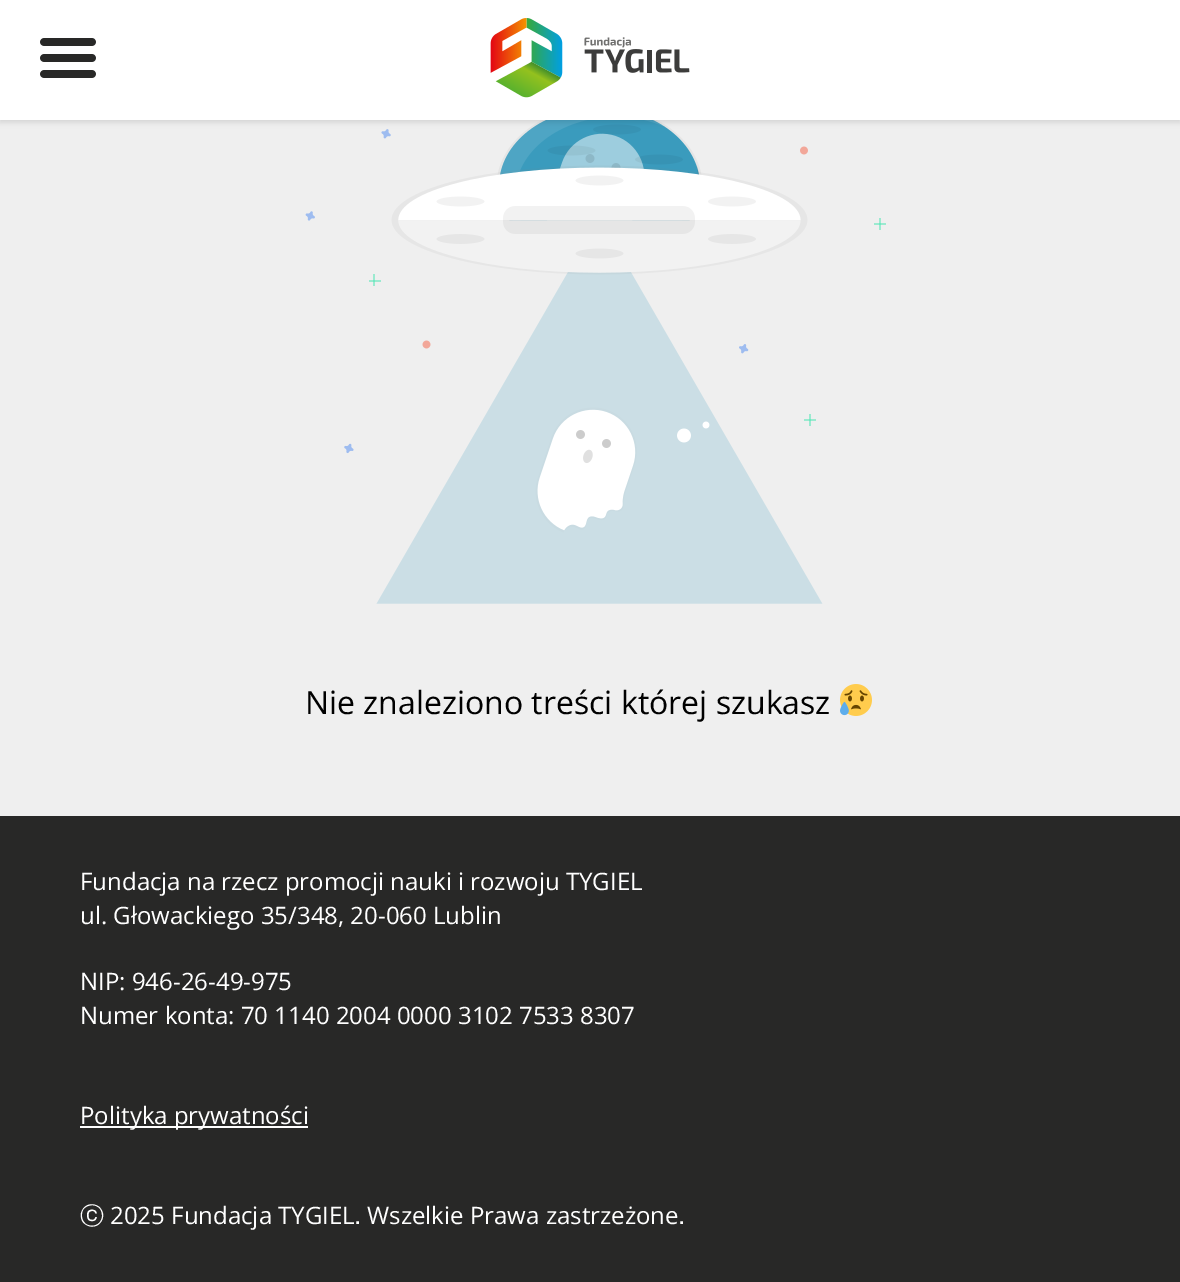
%!PS
<< /PageSize [1180 1282] /PageUsesTransparency true >> setpagedevice
/rgb { 3 { 255 div 3 1 roll } repeat setrgbcolor } def
/font { [ exch dup neg 0 0 3 -1 roll 0 0 ] selectfont } def
/alpha { dup .setfillconstantalpha .setstrokeconstantalpha } def
/roundrect { 5 dict begin { /r /h /w /y /x } { exch def } forall
  x r add y moveto x w add y 2 copy h add r arct x w add y h add x 1 index r arct
  x y h add x y r arct x y 2 copy exch w add exch r arct closepath end } def
/shadow { 12 dict begin { /a /b /q /h /w /y /x } { exch def } forall gsave /was 0 def
  9 -2 -9 { dup b mul 4 div /e exch def 1 sub .425 mul 2.718 exch exp 1 add a .99 .min exch div /now exch def
    1 1 now sub 1 was sub div sub alpha /was now def
    w h .min e 2 mul add 0 gt { x e sub y e sub w e 2 mul add h e 2 mul add
      q e add b .6 mul add w h .min 2 div e add .min 0 .max roundrect fill } if } for grestore end } def
/picture { 5 dict begin { /h /w /y /x /name } { exch def } forall
  gsave x y translate w h scale
  w h 8 [w 0 0 h 0 0] name (r) file false 3 colorimage grestore end } def
0 .pushpdf14devicefilter
0 1282 translate 1 -1 scale
4 setmiterlimit
239 239 239 rgb
0 0 1180 1282 rectfill
(img/3.rgb) 305 120 581 484 picture
0 0 0 rgb
0 2 1180 120 0 3 0.12 shadow
255 255 255 rgb
0 0 1180 120 rectfill
(img/1.rgb) 40 38 56 40 picture
(img/2.rgb) 490 18 200 80 picture
(img/4.rgb) 840 684 32 32 picture
40 40 39 rgb
0 816 1180 466 rectfill
255 255 255 rgb
80 1126 228 2 rectfill
/OpenSans-Regular 32 font
0 0 0 rgb
305 714 moveto (Nie znaleziono treści której szukasz) show
/OpenSans-Regular 24 font
255 255 255 rgb
[
  [(Fundacja na rzecz promocji nauki i rozwoju TYGIEL) 80 890]
  [(ul. Głowackiego 35/348, 20-060 Lublin) 80 924]
  [(NIP: 946-26-49-975) 80 990]
  [(Numer konta: 70 1140 2004 0000 3102 7533 8307) 80 1024]
  [(Polityka prywatności) 80 1124]
] { aload pop moveto show } forall
/WenQuanYiZenHei-Medium 24 font
80 1224 moveto (ⓒ) show
/OpenSans-Regular 24 font
110 1224 moveto (2025 Fundacja TYGIEL) show
/WenQuanYiZenHei-Medium 24 font
354 1224 moveto (.) show
/OpenSans-Regular 24 font
367 1224 moveto (Wszelkie Prawa zastrzeżone) show
/WenQuanYiZenHei-Medium 24 font
678 1224 moveto (.) show
.poppdf14devicefilter showpage
